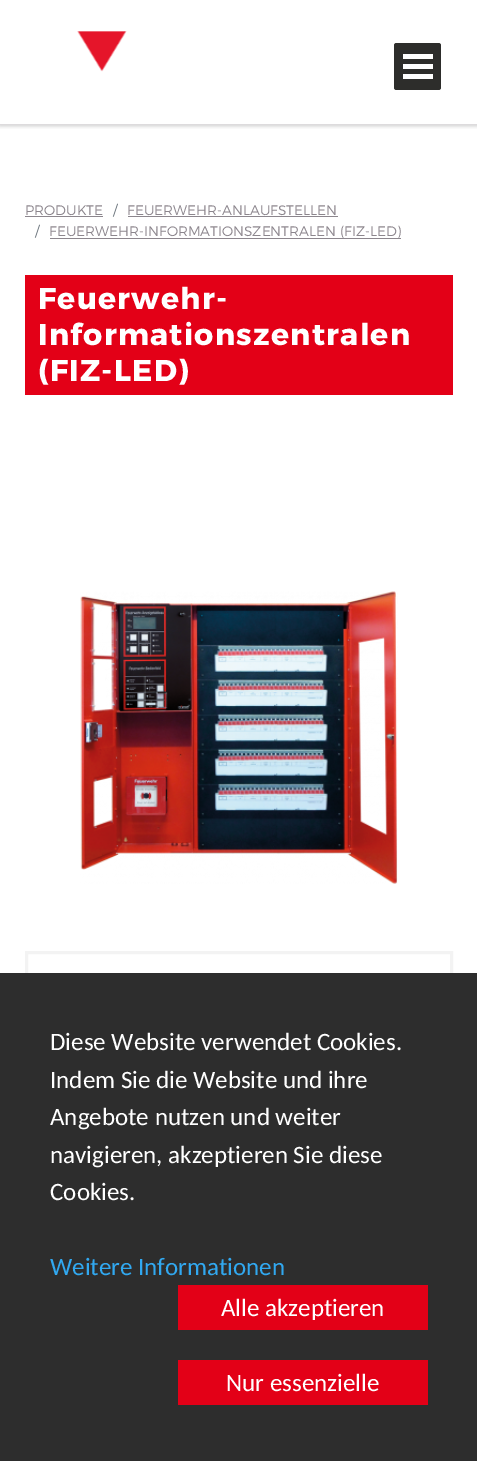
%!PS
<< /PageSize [477 1461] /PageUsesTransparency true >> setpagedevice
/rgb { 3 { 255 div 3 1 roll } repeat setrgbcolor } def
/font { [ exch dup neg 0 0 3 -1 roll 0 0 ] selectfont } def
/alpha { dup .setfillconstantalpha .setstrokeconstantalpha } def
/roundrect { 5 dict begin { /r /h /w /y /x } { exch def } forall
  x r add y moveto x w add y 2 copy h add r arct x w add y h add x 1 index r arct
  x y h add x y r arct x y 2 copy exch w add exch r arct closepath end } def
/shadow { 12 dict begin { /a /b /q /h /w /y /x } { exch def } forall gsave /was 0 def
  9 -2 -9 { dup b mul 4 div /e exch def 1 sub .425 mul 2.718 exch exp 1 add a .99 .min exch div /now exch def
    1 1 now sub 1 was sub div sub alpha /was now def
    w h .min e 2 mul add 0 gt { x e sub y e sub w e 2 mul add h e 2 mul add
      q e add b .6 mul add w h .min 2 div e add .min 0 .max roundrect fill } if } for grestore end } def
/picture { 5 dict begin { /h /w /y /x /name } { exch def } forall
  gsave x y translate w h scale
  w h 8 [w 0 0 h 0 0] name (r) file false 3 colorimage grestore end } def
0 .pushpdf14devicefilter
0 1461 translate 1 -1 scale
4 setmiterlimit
255 255 255 rgb
0 0 477 1461 rectfill
gsave
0 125 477 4 rectclip
0 0 0 rgb
0 1 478 125 0 2 0.2 shadow
grestore
221 219 221 rgb
0 124 477 1 rectfill
(img/1.rgb) 77 31 50 41 picture
45 45 43 rgb
394 43 47 47 2.5 roundrect fill
[
  [403 64 30 5 255 255 255]
  [403 54 30 5 255 255 255]
  [403 74 30 5 255 255 255]
  [25 216 78 1 140 134 141]
  [128 216 210 1 140 134 141]
  [50 238 351 1 140 134 141]
  [25 275 428 120 227 0 23]
] { aload pop rgb rectfill } forall
(img/2.rgb) 80 591 318 293 picture
243 243 243 rgb
3 setlinewidth
26.5 952.5 425 372 rectstroke
[
  [0 973 477 488 45 45 45]
  [178 1285 250 45 227 0 23]
  [178 1360 250 45 227 0 23]
] { aload pop rgb rectfill } forall
/Montserrat-Light 13.75 font
140 134 141 rgb
25 215 moveto (PRODUKTE) show
108 117 125 rgb
113 215 moveto (/) show
140 134 141 rgb
127 215 moveto (FEUERWEHR-ANLAUFSTELLEN) show
108 117 125 rgb
35 236 moveto (/) show
140 134 141 rgb
49 236 moveto (FEUERWEHR-INFORMATIONSZENTRALEN \(FIZ-LED\)) show
/Montserrat-Bold 30 font
255 255 255 rgb
38 309 moveto 1.25 0 (Feuerwehr-) ashow
38 345 moveto 1.25 0 (Informationszentralen) ashow
38 381 moveto 1.25 0 (\(FIZ-LED\)) ashow
/Carlito-Regular 25 font
[
  [(Diese Website verwendet Cookies.) 50 1050]
  [(Indem Sie die Website und ihre) 50 1088]
  [(Angebote nutzen und weiter) 50 1125]
  [(navigieren, akzeptieren Sie diese) 50 1163]
  [(Cookies.) 50 1200]
] { aload pop moveto show } forall
49 168 240 rgb
50 1275 moveto (Weitere Informationen) show
255 255 255 rgb
221 1316 moveto (Alle akzeptieren) show
226 1391 moveto (Nur essenzielle) show
.poppdf14devicefilter showpage
